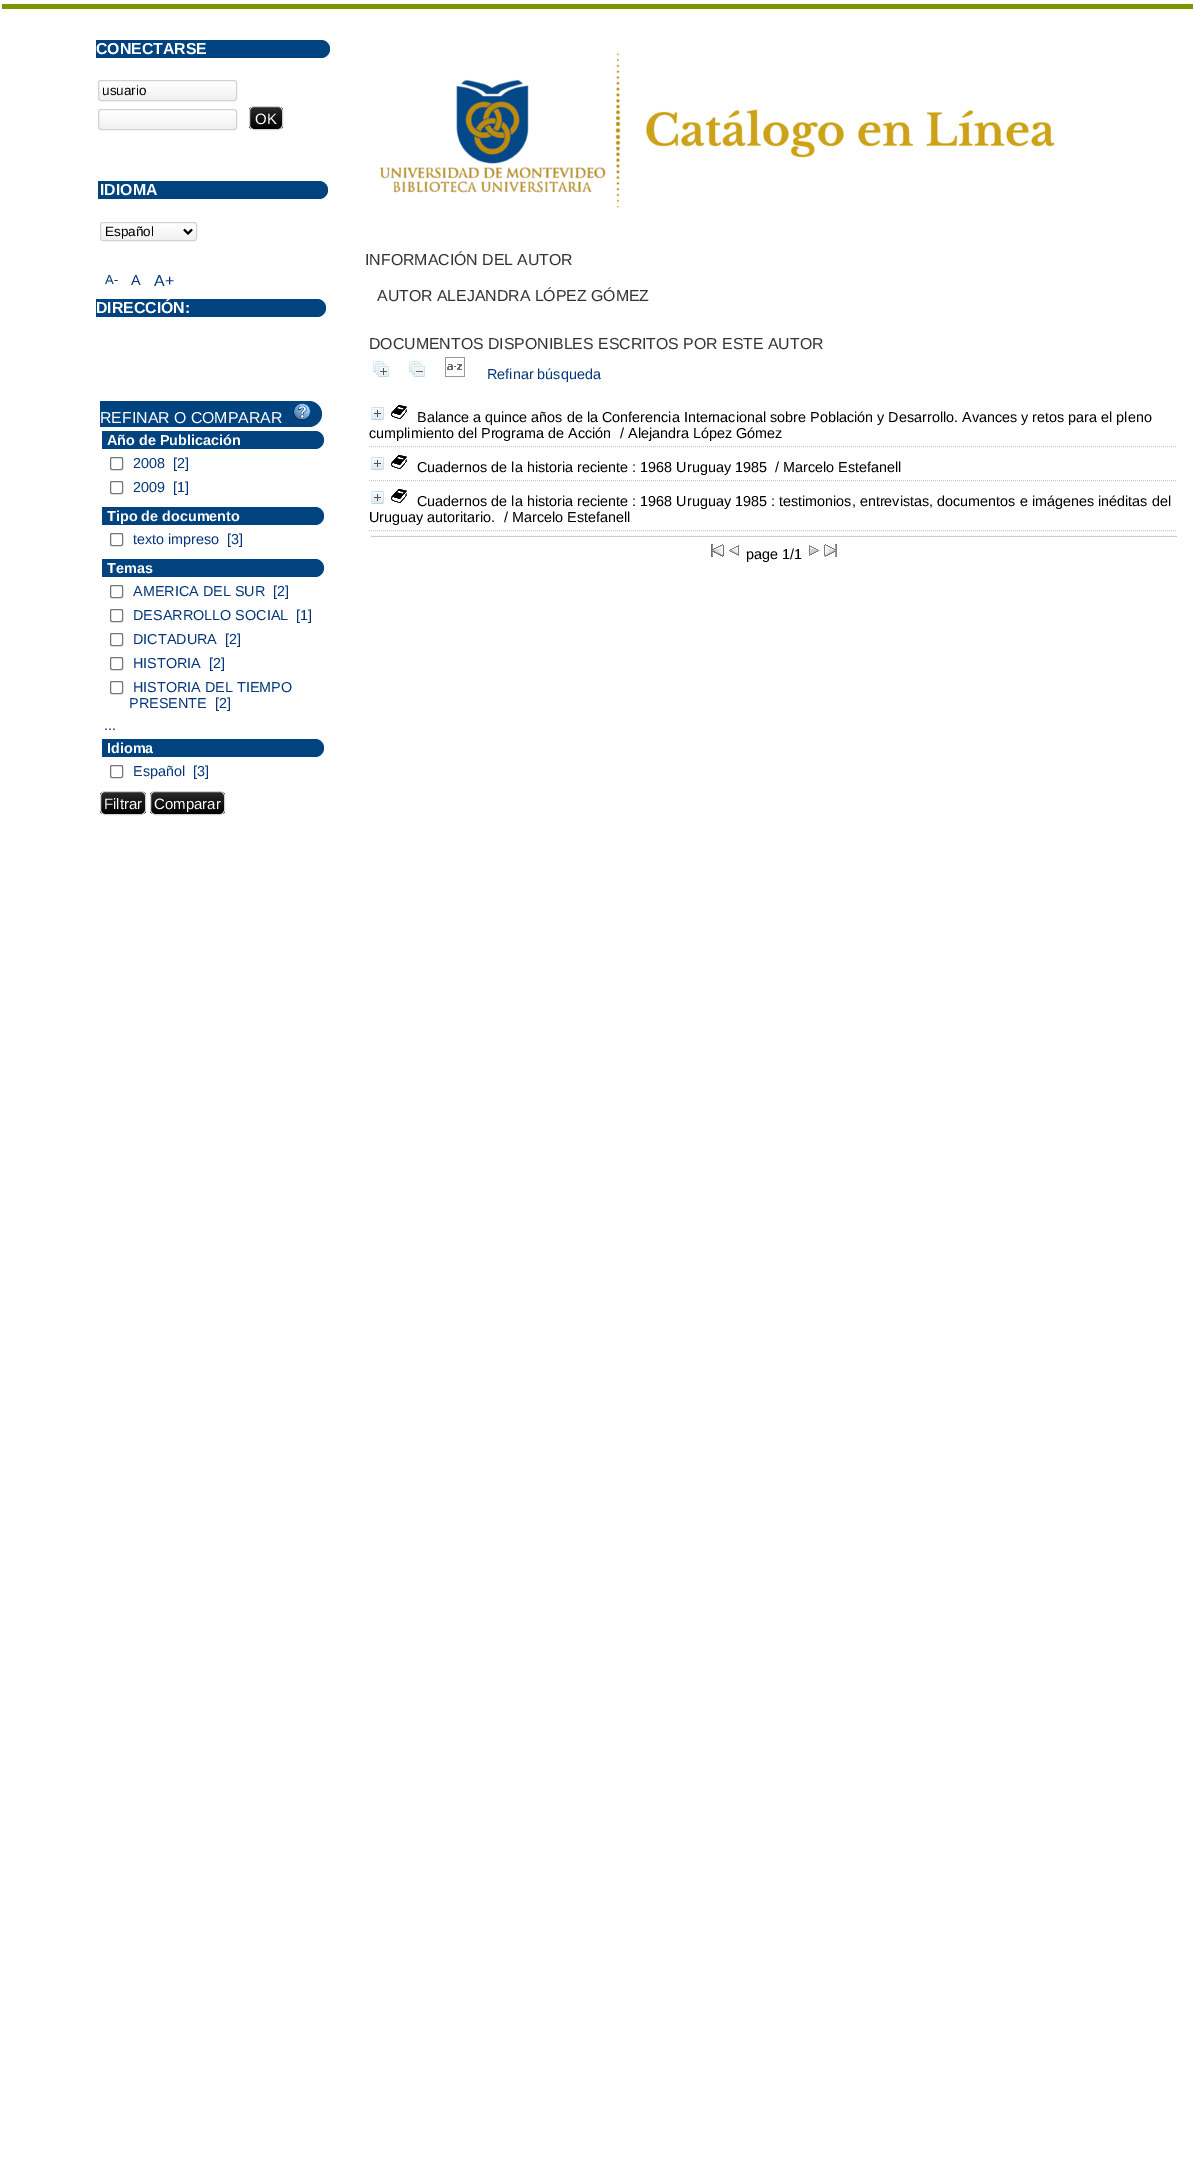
%!PS
<< /PageSize [1195 2174] >> setpagedevice
/rgb { 3 { 255 div 3 1 roll } repeat setrgbcolor } def
/font { [ exch dup neg 0 0 3 -1 roll 0 0 ] selectfont } def
/roundrect { 5 dict begin { /r /h /w /y /x } { exch def } forall
  x r add y moveto x w add y 2 copy h add r arct x w add y h add x 1 index r arct
  x y h add x y r arct x y 2 copy exch w add exch r arct closepath end } def
/picture { 5 dict begin { /h /w /y /x /name } { exch def } forall
  gsave x y translate w h scale
  w h 8 [w 0 0 h 0 0] name (r) file false 3 colorimage grestore end } def
0 2174 translate 1 -1 scale
4 setmiterlimit
255 255 255 rgb
0 0 1195 2174 rectfill
128 147 0 rgb
2 4 1191 5 rectfill
0 67 126 rgb
96 40 moveto 321 40 lineto 326 40 330 44 330 49 curveto 330 54 326 58 321 58 curveto 96 58 lineto closepath fill
gsave
98 80 139 21 3 roundrect clip newpath
gsave 98 81 moveto 237 81 lineto 237 100 lineto 98 100 lineto closepath clip newpath
<< /ShadingType 2 /ColorSpace /DeviceRGB /Coords [168 81 168 100] /Extend [true true] /Function << /FunctionType 3 /Domain [0 1] /Functions [<< /FunctionType 2 /Domain [0 1] /C0 [1 1 1] /C1 [1 1 1] /N 1 >> << /FunctionType 2 /Domain [0 1] /C0 [1 1 1] /C1 [0.945 0.945 0.945] /N 1 >>] /Bounds [0.01] /Encode [0 1 0 1] >> >> shfill grestore
grestore
210 210 210 rgb
98.5 80.5 138 20 2.5 roundrect stroke
gsave
98 109 139 21 3 roundrect clip newpath
gsave 98 110 moveto 237 110 lineto 237 129 lineto 98 129 lineto closepath clip newpath
<< /ShadingType 2 /ColorSpace /DeviceRGB /Coords [168 110 168 129] /Extend [true true] /Function << /FunctionType 3 /Domain [0 1] /Functions [<< /FunctionType 2 /Domain [0 1] /C0 [1 1 1] /C1 [1 1 1] /N 1 >> << /FunctionType 2 /Domain [0 1] /C0 [1 1 1] /C1 [0.945 0.945 0.945] /N 1 >>] /Bounds [0.01] /Encode [0 1 0 1] >> >> shfill grestore
grestore
98.5 109.5 138 20 2.5 roundrect stroke
gsave
249 106 34 24 5 roundrect clip newpath
gsave 249 107 moveto 283 107 lineto 283 129 lineto 249 129 lineto closepath clip newpath
<< /ShadingType 2 /ColorSpace /DeviceRGB /Coords [266 107 266 129] /Extend [true true] /Function << /FunctionType 2 /Domain [0 1] /C0 [0.165 0.165 0.165] /C1 [0 0 0] /N 1 >> >> shfill grestore
grestore
249.5 106.5 33 23 4.5 roundrect stroke
0 67 126 rgb
98 181 moveto 319 181 lineto 324 181 328 185 328 190 curveto 328 195 324 199 319 199 curveto 98 199 lineto closepath fill
gsave
100 222 97 19 3 roundrect clip newpath
gsave 100 223 moveto 197 223 lineto 197 240 lineto 100 240 lineto closepath clip newpath
<< /ShadingType 2 /ColorSpace /DeviceRGB /Coords [149 223 149 240] /Extend [true true] /Function << /FunctionType 3 /Domain [0 1] /Functions [<< /FunctionType 2 /Domain [0 1] /C0 [1 1 1] /C1 [1 1 1] /N 1 >> << /FunctionType 2 /Domain [0 1] /C0 [1 1 1] /C1 [0.945 0.945 0.945] /N 1 >>] /Bounds [0.01] /Encode [0 1 0 1] >> >> shfill grestore
grestore
210 210 210 rgb
100.5 222.5 96 18 2.5 roundrect stroke
0 0 0 rgb
2 setlinewidth
184 229.5 moveto 188 233.5 lineto 192 229.5 lineto stroke
0 67 126 rgb
96 299 moveto 317 299 lineto 322 299 326 303 326 308 curveto 326 313 322 317 317 317 curveto 96 317 lineto closepath fill
100 401 moveto 309 401 lineto 316 401 322 407 322 414 curveto 322 421 316 427 309 427 curveto 100 427 lineto closepath fill
(img/1.rgb) 293 403 18 18 picture
103 431 moveto 315 431 lineto 320 431 324 435 324 440 curveto 324 445 320 449 315 449 curveto 103 449 lineto 102.5 449 102 448.5 102 448 curveto 102 432 lineto 102 431.5 102.5 431 103 431 curveto closepath fill
118 118 118 rgb
1 setlinewidth
110.5 457.5 12 12 1.5 roundrect stroke
110.5 481.5 12 12 1.5 roundrect stroke
0 67 126 rgb
103 507 moveto 315 507 lineto 320 507 324 511 324 516 curveto 324 521 320 525 315 525 curveto 103 525 lineto 102.5 525 102 524.5 102 524 curveto 102 508 lineto 102 507.5 102.5 507 103 507 curveto closepath fill
118 118 118 rgb
110.5 533.5 12 12 1.5 roundrect stroke
0 67 126 rgb
103 559 moveto 315 559 lineto 320 559 324 563 324 568 curveto 324 573 320 577 315 577 curveto 103 577 lineto 102.5 577 102 576.5 102 576 curveto 102 560 lineto 102 559.5 102.5 559 103 559 curveto closepath fill
118 118 118 rgb
110.5 585.5 12 12 1.5 roundrect stroke
110.5 609.5 12 12 1.5 roundrect stroke
110.5 633.5 12 12 1.5 roundrect stroke
110.5 657.5 12 12 1.5 roundrect stroke
110.5 681.5 12 12 1.5 roundrect stroke
0 67 126 rgb
103 739 moveto 315 739 lineto 320 739 324 743 324 748 curveto 324 753 320 757 315 757 curveto 103 757 lineto 102.5 757 102 756.5 102 756 curveto 102 740 lineto 102 739.5 102.5 739 103 739 curveto closepath fill
118 118 118 rgb
110.5 765.5 12 12 1.5 roundrect stroke
gsave
100 791 46 24 5 roundrect clip newpath
gsave 100 792 moveto 146 792 lineto 146 814 lineto 100 814 lineto closepath clip newpath
<< /ShadingType 2 /ColorSpace /DeviceRGB /Coords [123 792 123 814] /Extend [true true] /Function << /FunctionType 2 /Domain [0 1] /C0 [0.165 0.165 0.165] /C1 [0 0 0] /N 1 >> >> shfill grestore
grestore
210 210 210 rgb
100.5 791.5 45 23 4.5 roundrect stroke
gsave
150 791 75 24 5 roundrect clip newpath
gsave 150 792 moveto 225 792 lineto 225 814 lineto 150 814 lineto closepath clip newpath
<< /ShadingType 2 /ColorSpace /DeviceRGB /Coords [188 792 188 814] /Extend [true true] /Function << /FunctionType 2 /Domain [0 1] /C0 [0.165 0.165 0.165] /C1 [0 0 0] /N 1 >> >> shfill grestore
grestore
150.5 791.5 74 23 4.5 roundrect stroke
(img/2.rgb) 379 53 676 155 picture
(img/3.rgb) 373 361 16 16 picture
(img/4.rgb) 409 361 16 16 picture
(img/5.rgb) 445 357 20 20 picture
204 204 204 rgb
[1 1] 0 setdash
369 446.5 moveto 1177 446.5 lineto stroke
(img/6.rgb) 371 407 13 13 picture
(img/7.rgb) 391 405 16 14 picture
369 480.5 moveto 1177 480.5 lineto stroke
(img/6.rgb) 371 457 13 13 picture
(img/7.rgb) 391 455 16 14 picture
369 530.5 moveto 1177 530.5 lineto stroke
(img/6.rgb) 371 491 13 13 picture
(img/7.rgb) 391 489 16 14 picture
371 536 806 1 rectfill
(img/8.rgb) 711 544 13 13 picture
(img/9.rgb) 729 545 10 11 picture
(img/10.rgb) 809 545 10 11 picture
(img/11.rgb) 824 544 13 13 picture
/LiberationSans-Bold 15.85 font
255 255 255 rgb
96 54 moveto (CONECTARSE) show
/LiberationSans-Regular 13.5 font
0 0 0 rgb
102 95 moveto (usuario) show
/LiberationSans-Regular 15 font
255 255 255 rgb
255 124 moveto (OK) show
/LiberationSans-Bold 15.85 font
100 195 moveto (IDIOMA) show
/LiberationSans-Regular 13.5 font
0 0 0 rgb
105 236 moveto (Español) show
/LiberationSans-Regular 13 font
6 54 122 rgb
105 284 moveto (A-) show
/LiberationSans-Regular 14.4 font
131 285 moveto (A) show
/LiberationSans-Regular 15.85 font
154 286 moveto (A+) show
/LiberationSans-Bold 15.85 font
255 255 255 rgb
96 313 moveto (DIRECCIÓN:) show
/LiberationSans-Regular 15.85 font
100 423 moveto (REFINAR O COMPARAR) show
/LiberationSans-Bold 14.4 font
107 445 moveto (Año de Publicación) show
/LiberationSans-Regular 14.4 font
6 54 122 rgb
[
  [(2008) 133 468]
  [([2]) 173 468]
  [(2009) 133 492]
  [([1]) 173 492]
] { aload pop moveto show } forall
/LiberationSans-Bold 14.4 font
255 255 255 rgb
107 521 moveto (Tipo de documento) show
/LiberationSans-Regular 14.4 font
6 54 122 rgb
133 544 moveto (texto impreso) show
227 544 moveto ([3]) show
/LiberationSans-Bold 14.4 font
255 255 255 rgb
107 573 moveto (Temas) show
/LiberationSans-Regular 14.4 font
6 54 122 rgb
[
  [(AMERICA DEL SUR) 133 596]
  [([2]) 273 596]
  [(DESARROLLO SOCIAL) 133 620]
  [([1]) 296 620]
  [(DICTADURA) 133 644]
  [([2]) 225 644]
  [(HISTORIA) 133 668]
  [([2]) 209 668]
  [(HISTORIA DEL TIEMPO) 133 692]
  [(PRESENTE) 129 708]
  [([2]) 215 708]
  [(...) 104 730]
] { aload pop moveto show } forall
/LiberationSans-Bold 14.4 font
255 255 255 rgb
107 753 moveto (Idioma) show
/LiberationSans-Regular 14.4 font
6 54 122 rgb
133 776 moveto (Español) show
193 776 moveto ([3]) show
/LiberationSans-Regular 15 font
255 255 255 rgb
104 809 moveto (Filtrar) show
154 809 moveto (Comparar) show
/LiberationSans-Regular 15.85 font
51 51 51 rgb
[
  [(INFORMACIÓN DEL AUTOR) 365 265]
  [(AUTOR ALEJANDRA LÓPEZ GÓMEZ) 377 301]
  [(DOCUMENTOS DISPONIBLES ESCRITOS POR ESTE AUTOR) 369 349]
] { aload pop moveto show } forall
/LiberationSans-Regular 14.4 font
6 54 122 rgb
487 379 moveto (Refinar búsqueda) show
0 0 0 rgb
[
  [(Balance a quince años de la Conferencia Internacional sobre Población y Desarrollo. Avances y retos para el pleno) 417 422]
  [(cumplimiento del Programa de Acción) 369 438]
  [(/ Alejandra López Gómez) 620 438]
  [(Cuadernos de la historia reciente : 1968 Uruguay 1985) 417 472]
  [(/ Marcelo Estefanell) 775 472]
  [(Cuadernos de la historia reciente : 1968 Uruguay 1985 : testimonios, entrevistas, documentos e imágenes inéditas del) 417 506]
  [(Uruguay autoritario.) 369 522]
  [(/ Marcelo Estefanell) 504 522]
  [(page 1/1) 746 559]
] { aload pop moveto show } forall
showpage
